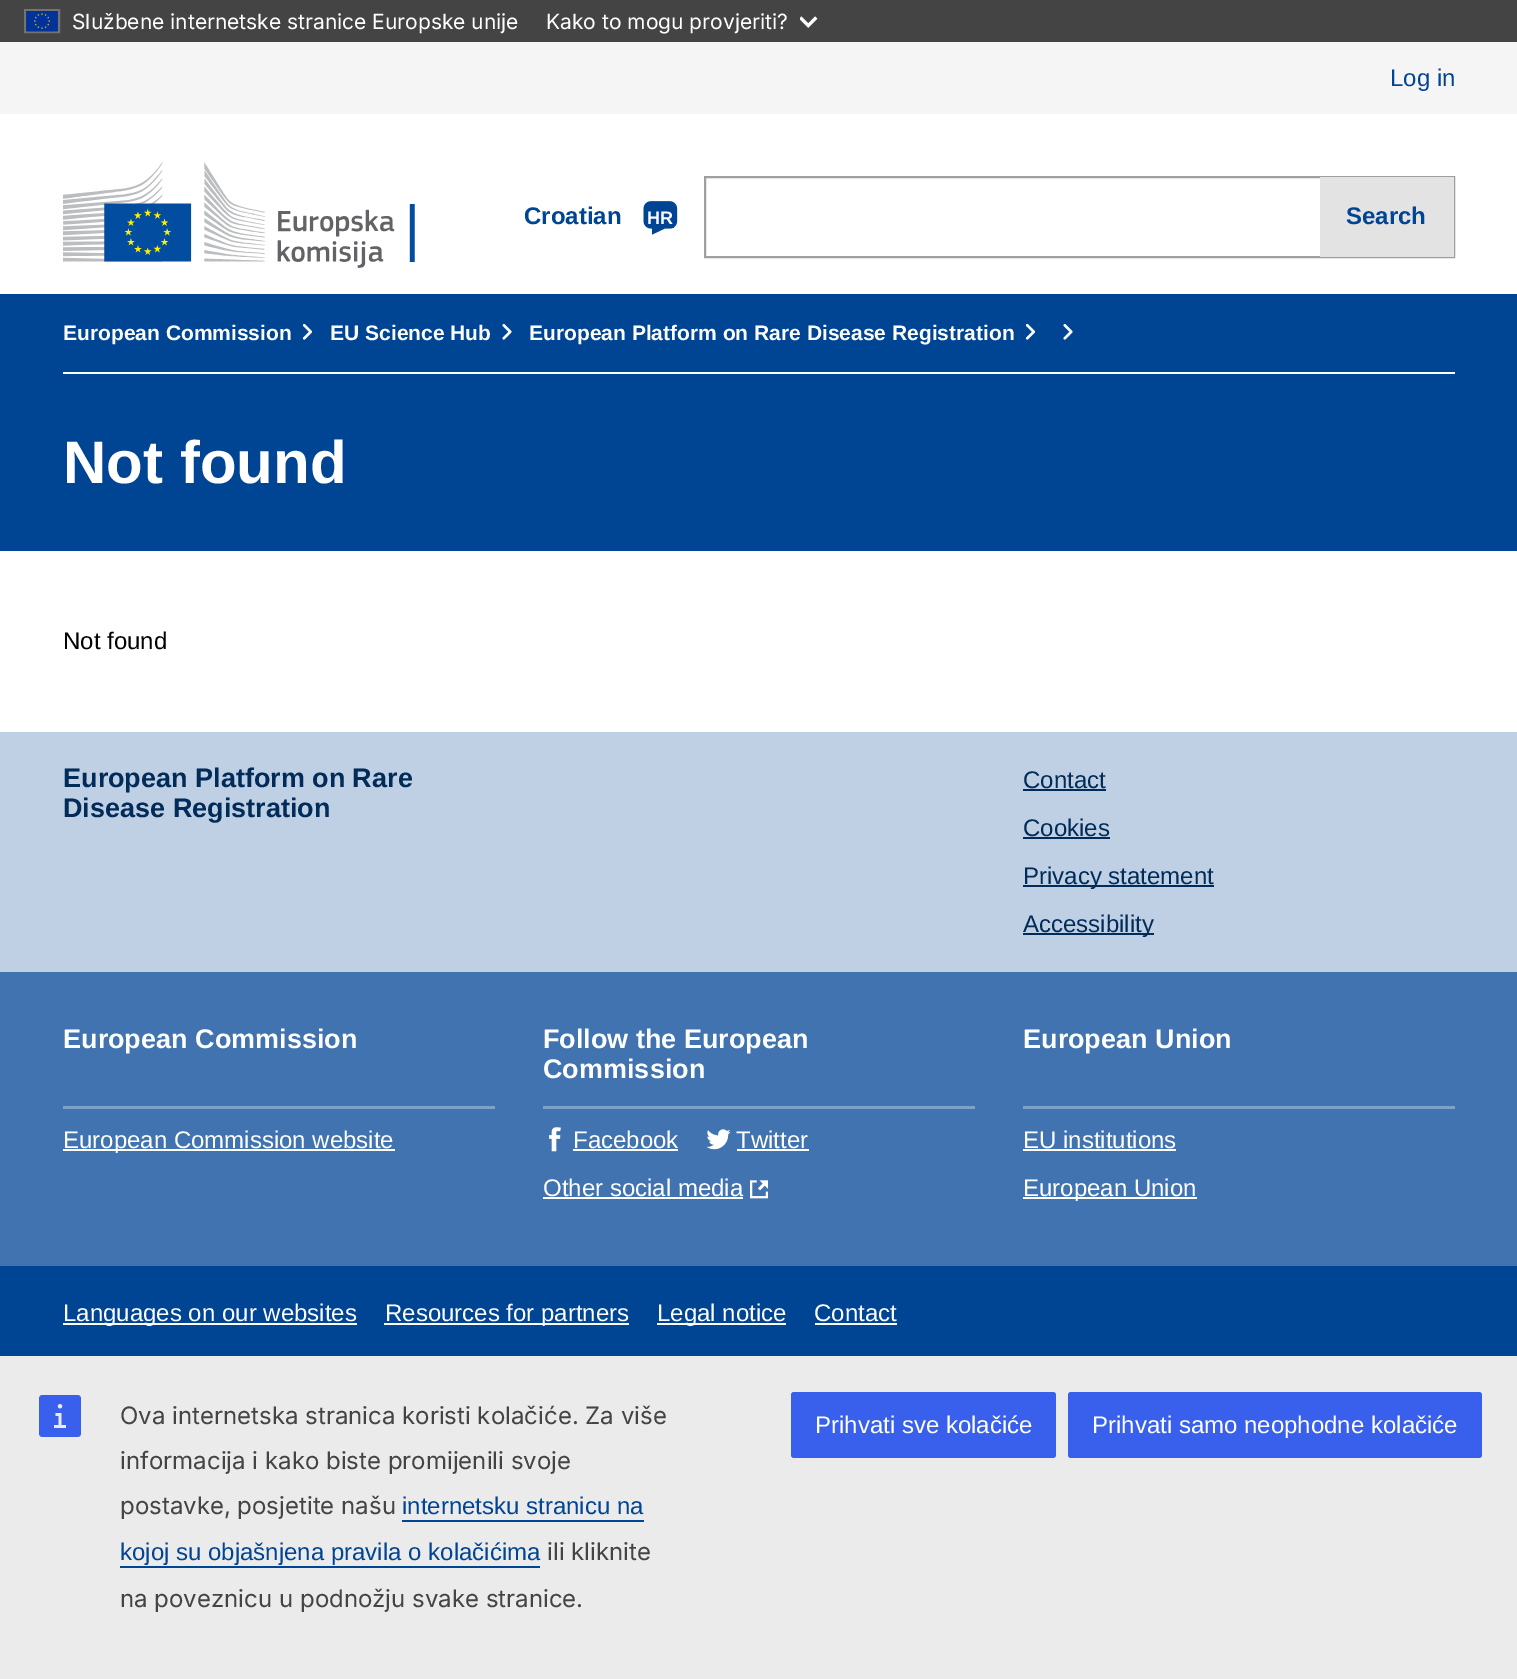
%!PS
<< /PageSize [1517 1679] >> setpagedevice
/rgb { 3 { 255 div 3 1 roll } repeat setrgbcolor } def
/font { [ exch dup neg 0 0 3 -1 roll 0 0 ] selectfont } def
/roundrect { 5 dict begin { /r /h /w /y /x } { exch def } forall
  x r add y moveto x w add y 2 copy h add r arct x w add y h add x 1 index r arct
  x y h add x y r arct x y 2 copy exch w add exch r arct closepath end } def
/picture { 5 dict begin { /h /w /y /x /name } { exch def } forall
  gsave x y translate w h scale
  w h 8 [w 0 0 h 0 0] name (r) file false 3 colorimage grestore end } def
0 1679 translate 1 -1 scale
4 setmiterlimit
255 255 255 rgb
0 0 1517 1679 rectfill
68 68 68 rgb
0 0 1517 42 rectfill
115 115 115 rgb
2 setlinewidth
25 10 34 22 rectstroke
(img/1.rgb) 26 11 32 21 picture
(img/2.rgb) 800 16 18 12 picture
245 245 245 rgb
0 42 1517 72 rectfill
(img/3.rgb) 63 162 352 106 picture
(img/4.rgb) 643 201 35 34 picture
0 68 148 rgb
672 227 2 1 rectfill
159 159 159 rgb
705 177 749 80 rectstroke
[
  [1320 177 134 80 227 227 227]
  [0 294 1517 257 0 68 148]
  [63 372 1392 2 255 255 255]
] { aload pop rgb rectfill } forall
(img/5.rgb) 302 323 11 17 picture
(img/6.rgb) 502 323 10 17 picture
(img/5.rgb) 1025 323 11 17 picture
(img/6.rgb) 1063 323 10 17 picture
[
  [0 732 1517 240 191 208 228]
  [1023 789 83 2 1 43 88]
  [1023 837 87 2 1 43 88]
  [1023 885 191 2 1 43 88]
  [1023 933 131 2 1 43 88]
  [0 972 1517 294 64 115 175]
  [63 1106 432 3 127 161 201]
  [63 1149 332 2 255 255 255]
  [543 1106 432 3 127 161 201]
] { aload pop rgb rectfill } forall
(img/7.rgb) 549 1127 12 25 picture
255 255 255 rgb
573 1149 105 2 rectfill
(img/8.rgb) 706 1129 25 21 picture
737 1149 72 2 rectfill
543 1197 200 2 rectfill
(img/9.rgb) 750 1180 18 19 picture
[
  [1023 1106 432 3 127 161 201]
  [1023 1149 153 2 255 255 255]
  [1023 1197 174 2 255 255 255]
  [0 1266 1517 90 0 68 148]
  [63 1323 294 2 255 255 255]
  [384 1323 245 2 255 255 255]
  [657 1323 129 2 255 255 255]
  [815 1323 82 2 255 255 255]
  [0 1356 1517 323 235 235 235]
] { aload pop rgb rectfill } forall
(img/10.rgb) 39 1395 42 42 picture
0 68 148 rgb
402 1520 242 2 rectfill
120 1566 420 2 rectfill
56 96 237 rgb
791 1392 265 66 3 roundrect fill
1068 1392 414 66 3 roundrect fill
/Inter-Regular 21 font
255 255 255 rgb
72 29 moveto (Službene internetske stranice Europske unije) show
546 29 moveto (Kako to mogu provjeriti?) show
/LiberationSans-Regular 24 font
0 68 148 rgb
1390 86 moveto (Log in) show
/LiberationSans-Bold 24 font
524 224 moveto (Croatian) show
/LiberationSans-Bold 18 font
255 255 255 rgb
647 224 moveto (HR) show
/LiberationSans-Bold 24 font
0 68 148 rgb
1346 224 moveto (Search) show
/LiberationSans-Bold 21 font
255 255 255 rgb
[
  [(European Commission) 63 340]
  [(EU Science Hub) 330 340]
  [(European Platform on Rare Disease Registration) 529 340]
] { aload pop moveto show } forall
/LiberationSans-Bold 60 font
63 483 moveto (Not found) show
/LiberationSans-Regular 24 font
0 0 0 rgb
63 649 moveto (Not found) show
/LiberationSans-Bold 27 font
1 43 88 rgb
63 787 moveto (European Platform on Rare) show
63 817 moveto (Disease Registration) show
/LiberationSans-Regular 24 font
[
  [(Contact) 1023 788]
  [(Cookies) 1023 836]
  [(Privacy statement) 1023 884]
  [(Accessibility) 1023 932]
] { aload pop moveto show } forall
/LiberationSans-Bold 27 font
255 255 255 rgb
63 1048 moveto (European Commission) show
/LiberationSans-Regular 24 font
63 1148 moveto (European Commission website) show
/LiberationSans-Bold 27 font
543 1048 moveto (Follow the European) show
543 1078 moveto (Commission) show
/LiberationSans-Regular 24 font
[
  [(Facebook) 573 1148]
  [(Twitter) 736 1148]
  [(Other social media) 543 1196]
] { aload pop moveto show } forall
/LiberationSans-Bold 27 font
1023 1048 moveto (European Union) show
/LiberationSans-Regular 24 font
[
  [(EU institutions) 1023 1148]
  [(European Union) 1023 1196]
  [(Languages on our websites) 63 1321]
  [(Resources for partners) 385 1321]
  [(Legal notice) 657 1321]
  [(Contact) 814 1321]
] { aload pop moveto show } forall
/Inter-Regular 24 font
68 68 68 rgb
[
  [(Ova internetska stranica koristi kolačiće. Za više) 120 1424]
  [(informacija i kako biste promijenili svoje) 120 1469]
  [(postavke, posjetite našu) 120 1514]
] { aload pop moveto show } forall
/LiberationSans-Regular 24 font
0 68 148 rgb
402 1514 moveto (internetsku stranicu na) show
120 1560 moveto (kojoj su objašnjena pravila o kolačićima) show
/Inter-Regular 24 font
68 68 68 rgb
547 1560 moveto (ili kliknite) show
120 1607 moveto (na poveznicu u podnožju svake stranice.) show
/LiberationSans-Regular 24 font
255 255 255 rgb
815 1433 moveto (Prihvati sve kolačiće) show
1092 1433 moveto (Prihvati samo neophodne kolačiće) show
showpage
